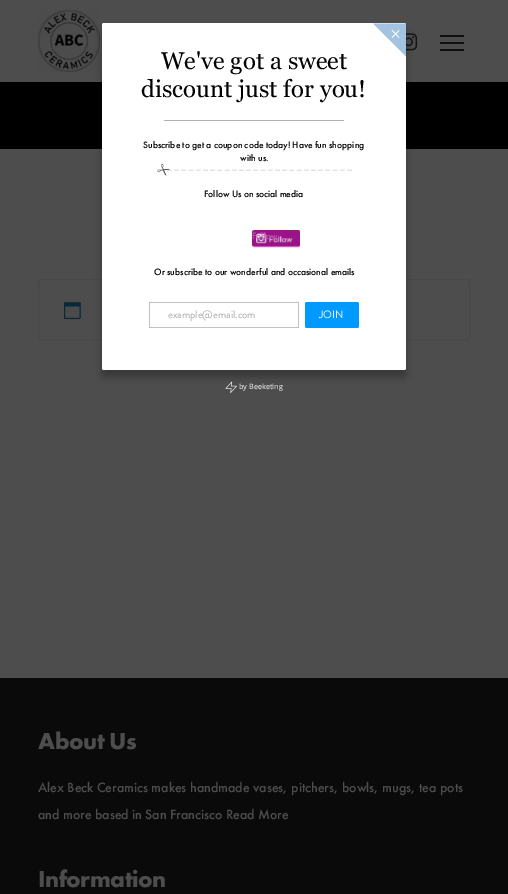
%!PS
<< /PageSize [508 894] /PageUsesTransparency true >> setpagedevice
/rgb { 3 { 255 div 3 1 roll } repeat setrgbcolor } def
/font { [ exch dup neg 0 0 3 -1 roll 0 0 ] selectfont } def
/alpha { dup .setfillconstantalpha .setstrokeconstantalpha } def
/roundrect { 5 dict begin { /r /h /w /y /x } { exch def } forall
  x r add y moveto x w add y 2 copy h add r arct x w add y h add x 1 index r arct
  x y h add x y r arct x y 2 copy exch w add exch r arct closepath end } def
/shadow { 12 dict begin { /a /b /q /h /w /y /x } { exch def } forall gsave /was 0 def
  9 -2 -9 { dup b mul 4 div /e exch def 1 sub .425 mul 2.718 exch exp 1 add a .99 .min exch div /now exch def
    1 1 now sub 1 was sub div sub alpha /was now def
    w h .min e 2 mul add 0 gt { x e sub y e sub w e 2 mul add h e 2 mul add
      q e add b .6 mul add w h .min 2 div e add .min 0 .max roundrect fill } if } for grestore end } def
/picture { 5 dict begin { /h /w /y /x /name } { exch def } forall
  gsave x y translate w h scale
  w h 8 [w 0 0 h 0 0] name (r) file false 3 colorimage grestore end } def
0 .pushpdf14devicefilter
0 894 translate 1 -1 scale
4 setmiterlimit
77 77 77 rgb
0 0 508 894 rectfill
(img/6.rgb) 38 10 62 62 picture
(img/7.rgb) 406 33 12 18 picture
0 0 0 rgb
0 82 508 67 rectfill
72 72 72 rgb
38.5 279.5 431 60 1.5 roundrect stroke
0 0 0 rgb
102 30 304 347 2 3.5 0.27 shadow
255 255 255 rgb
102 23 304 347 2 roundrect fill
163 195 224 rgb
373 23.5 moveto 406 23.5 lineto 406 56.5 lineto closepath fill
(img/1.rgb) 391 29 9 9 picture
177 177 177 rgb
164 120 180 1 0.5 roundrect fill
(img/3.rgb) 160 169 192 2 picture
(img/2.rgb) 157 164 13 12 picture
(img/4.rgb) 252 230 48 18 picture
172 172 172 rgb
0.6 setlinewidth
149.3 302.3 149.4 25.4 0.7 roundrect stroke
0 154 255 rgb
305 302 54 26 2 roundrect fill
(img/5.rgb) 225 381 12 12 picture
[
  [440 35 24 2 15 15 15]
  [440 42 24 2 15 15 15]
  [440 49 24 2 15 15 15]
] { aload pop rgb rectfill } forall
(img/8.rgb) 64 302 17 18 picture
10 10 10 rgb
0 678 508 216 rectfill
/Georgia-Regular 24 font
0 0 0 rgb
161 69 moveto (We've got a sweet) show
141 97 moveto (discount just for you!) show
/FuturaPT-Medium 9.6 font
[
  [(Subscribe to get a coupon code today! Have fun shopping) 143 148]
  [(with us.) 240 161]
  [(Follow Us on social media) 204 197]
] { aload pop moveto show } forall
182 88 169 rgb
252 239 moveto (Follow) show
0 0 0 rgb
154 275 moveto (Or subscribe to our wonderful and occasional emails) show
/BrandonGrotesque-Regular 10.75 font
169 169 169 rgb
168 318 moveto (example@email.com) show
255 255 255 rgb
319 318 moveto (JOIN) show
/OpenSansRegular-Regular 7.25 font
239 389 moveto (by Beeketing) show
/FuturaPT-Bold 24 font
77 77 77 rgb
38 749 moveto -0.5 0 (About Us) ashow
/FuturaPT-Medium 14 font
38 792 moveto (Alex Beck Ceramics makes handmade vases, pitchers, bowls, mugs, tea pots) show
38 819 moveto (and more based in San Francisco Read More) show
/FuturaPT-Bold 24 font
38 887 moveto -0.5 0 (Information) ashow
.poppdf14devicefilter showpage
